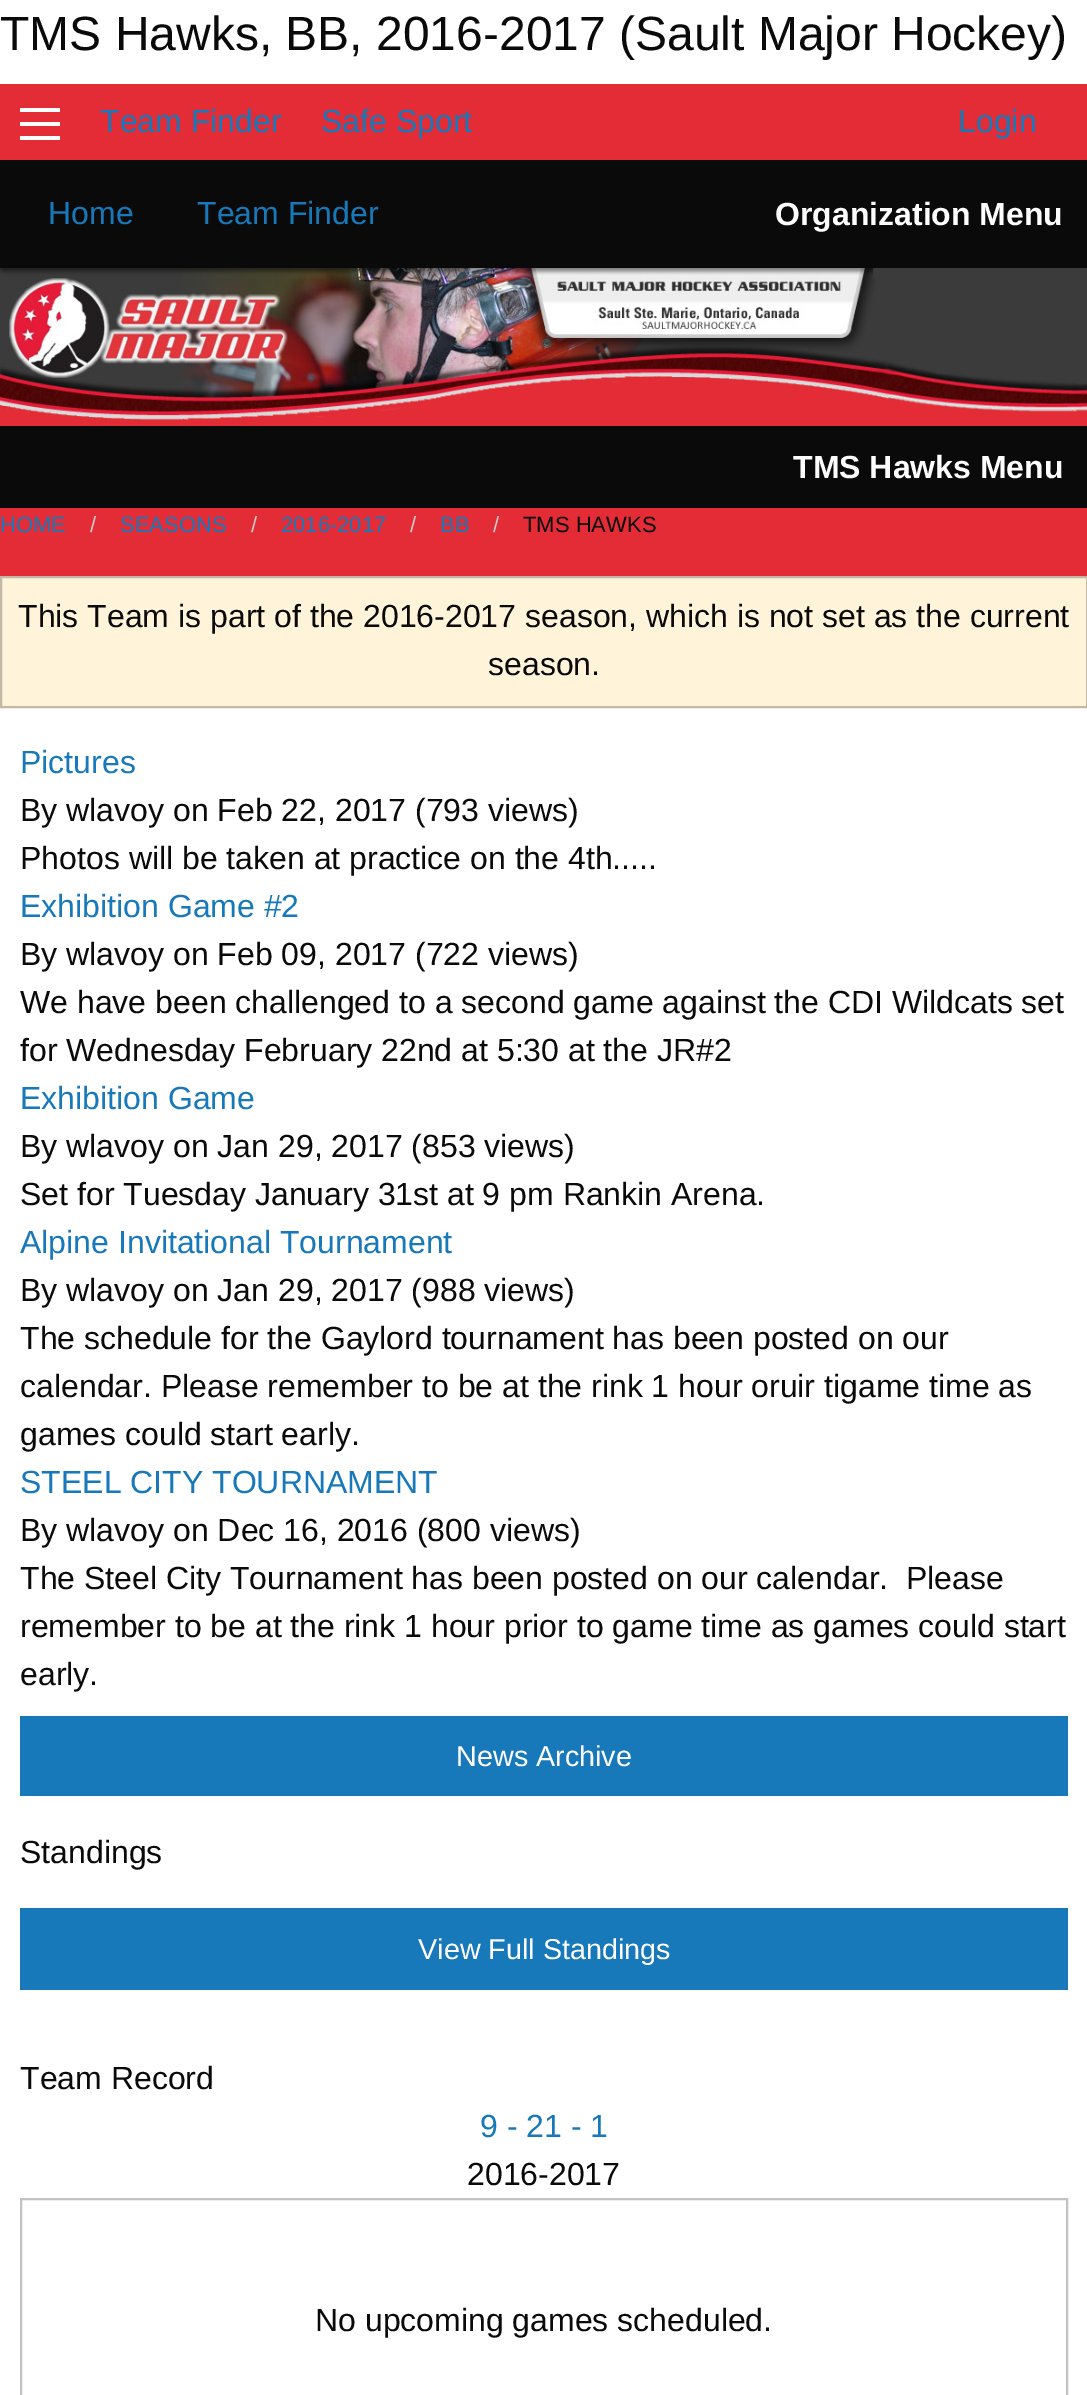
%!PS
<< /PageSize [1087 2395] >> setpagedevice
/rgb { 3 { 255 div 3 1 roll } repeat setrgbcolor } def
/font { [ exch dup neg 0 0 3 -1 roll 0 0 ] selectfont } def
/picture { 5 dict begin { /h /w /y /x /name } { exch def } forall
  gsave x y translate w h scale
  w h 8 [w 0 0 h 0 0] name (r) file false 3 colorimage grestore end } def
0 2395 translate 1 -1 scale
4 setmiterlimit
255 255 255 rgb
0 0 1087 2395 rectfill
[
  [0 84 1087 492 227 44 53]
  [20 136 40 4 254 254 254]
  [20 122 40 4 254 254 254]
  [20 108 40 4 254 254 254]
  [0 160 1087 108 10 10 10]
] { aload pop rgb rectfill } forall
(img/1.rgb) 0 268 1087 152 picture
0 426 1087 82 rectfill
255 243 217 rgb
1 577 moveto 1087 577 lineto 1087 707 lineto 1 707 lineto closepath gsave fill grestore
194 185 165 rgb
2 setlinewidth
stroke
23 121 186 rgb
20 1716 1048 80 rectfill
20 1908 1048 82 rectfill
194 194 194 rgb
21 2199 1046 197 rectstroke
/LiberationSans-Regular 48 font
10 10 10 rgb
0 50 moveto (TMS Hawks, BB, 2016-2017 \(Sault Major Hockey\)) show
/LiberationSans-Regular 32 font
23 121 186 rgb
[
  [(Team Finder) 100 132]
  [(Safe Sport) 321 132]
  [(Login) 958 132]
  [(Home) 48 224]
  [(Team Finder) 197 224]
] { aload pop moveto show } forall
/LiberationSans-Bold 32 font
254 254 254 rgb
775 225 moveto (Organization Menu) show
793 478 moveto (TMS Hawks Menu) show
/LiberationSans-Regular 22 font
23 121 186 rgb
0 532 moveto (HOME) show
202 202 202 rgb
90 532 moveto (/) show
23 121 186 rgb
120 532 moveto (SEASONS) show
202 202 202 rgb
251 532 moveto (/) show
23 121 186 rgb
281 532 moveto (2016-2017) show
202 202 202 rgb
410 532 moveto (/) show
23 121 186 rgb
440 532 moveto (BB) show
202 202 202 rgb
493 532 moveto (/) show
10 10 10 rgb
523 532 moveto (TMS HAWKS) show
/LiberationSans-Regular 32 font
18 627 moveto (This Team is part of the 2016-2017 season, which is not set as the current) show
488 675 moveto (season.) show
23 121 186 rgb
20 773 moveto (Pictures) show
10 10 10 rgb
20 821 moveto (By wlavoy on Feb 22, 2017 \(793 views\)) show
20 869 moveto (Photos will be taken at practice on the 4th.....) show
23 121 186 rgb
20 917 moveto (Exhibition Game #2) show
10 10 10 rgb
[
  [(By wlavoy on Feb 09, 2017 \(722 views\)) 20 965]
  [(We have been challenged to a second game against the CDI Wildcats set) 20 1013]
  [(for Wednesday February 22nd at 5:30 at the JR#2) 20 1061]
] { aload pop moveto show } forall
23 121 186 rgb
20 1109 moveto (Exhibition Game) show
10 10 10 rgb
20 1157 moveto (By wlavoy on Jan 29, 2017 \(853 views\)) show
20 1205 moveto (Set for Tuesday January 31st at 9 pm Rankin Arena.) show
23 121 186 rgb
20 1253 moveto (Alpine Invitational Tournament) show
10 10 10 rgb
[
  [(By wlavoy on Jan 29, 2017 \(988 views\)) 20 1301]
  [(The schedule for the Gaylord tournament has been posted on our) 20 1349]
  [(calendar. Please remember to be at the rink 1 hour oruir tigame time as) 20 1397]
  [(games could start early.) 20 1445]
] { aload pop moveto show } forall
23 121 186 rgb
20 1493 moveto (STEEL CITY TOURNAMENT) show
10 10 10 rgb
[
  [(By wlavoy on Dec 16, 2016 \(800 views\)) 20 1541]
  [(The Steel City Tournament has been posted on our calendar.  Please) 20 1589]
  [(remember to be at the rink 1 hour prior to game time as games could start) 20 1637]
  [(early.) 20 1685]
] { aload pop moveto show } forall
/LiberationSans-Regular 28.75 font
254 254 254 rgb
456 1766 moveto (News Archive) show
/LiberationSans-Regular 32 font
10 10 10 rgb
20 1863 moveto (Standings) show
/LiberationSans-Regular 28.75 font
254 254 254 rgb
418 1959 moveto (View Full Standings) show
/LiberationSans-Regular 32 font
10 10 10 rgb
20 2089 moveto (Team Record) show
23 121 186 rgb
480 2137 moveto (9 - 21 - 1) show
10 10 10 rgb
467 2185 moveto (2016-2017) show
315 2331 moveto (No upcoming games scheduled.) show
showpage
